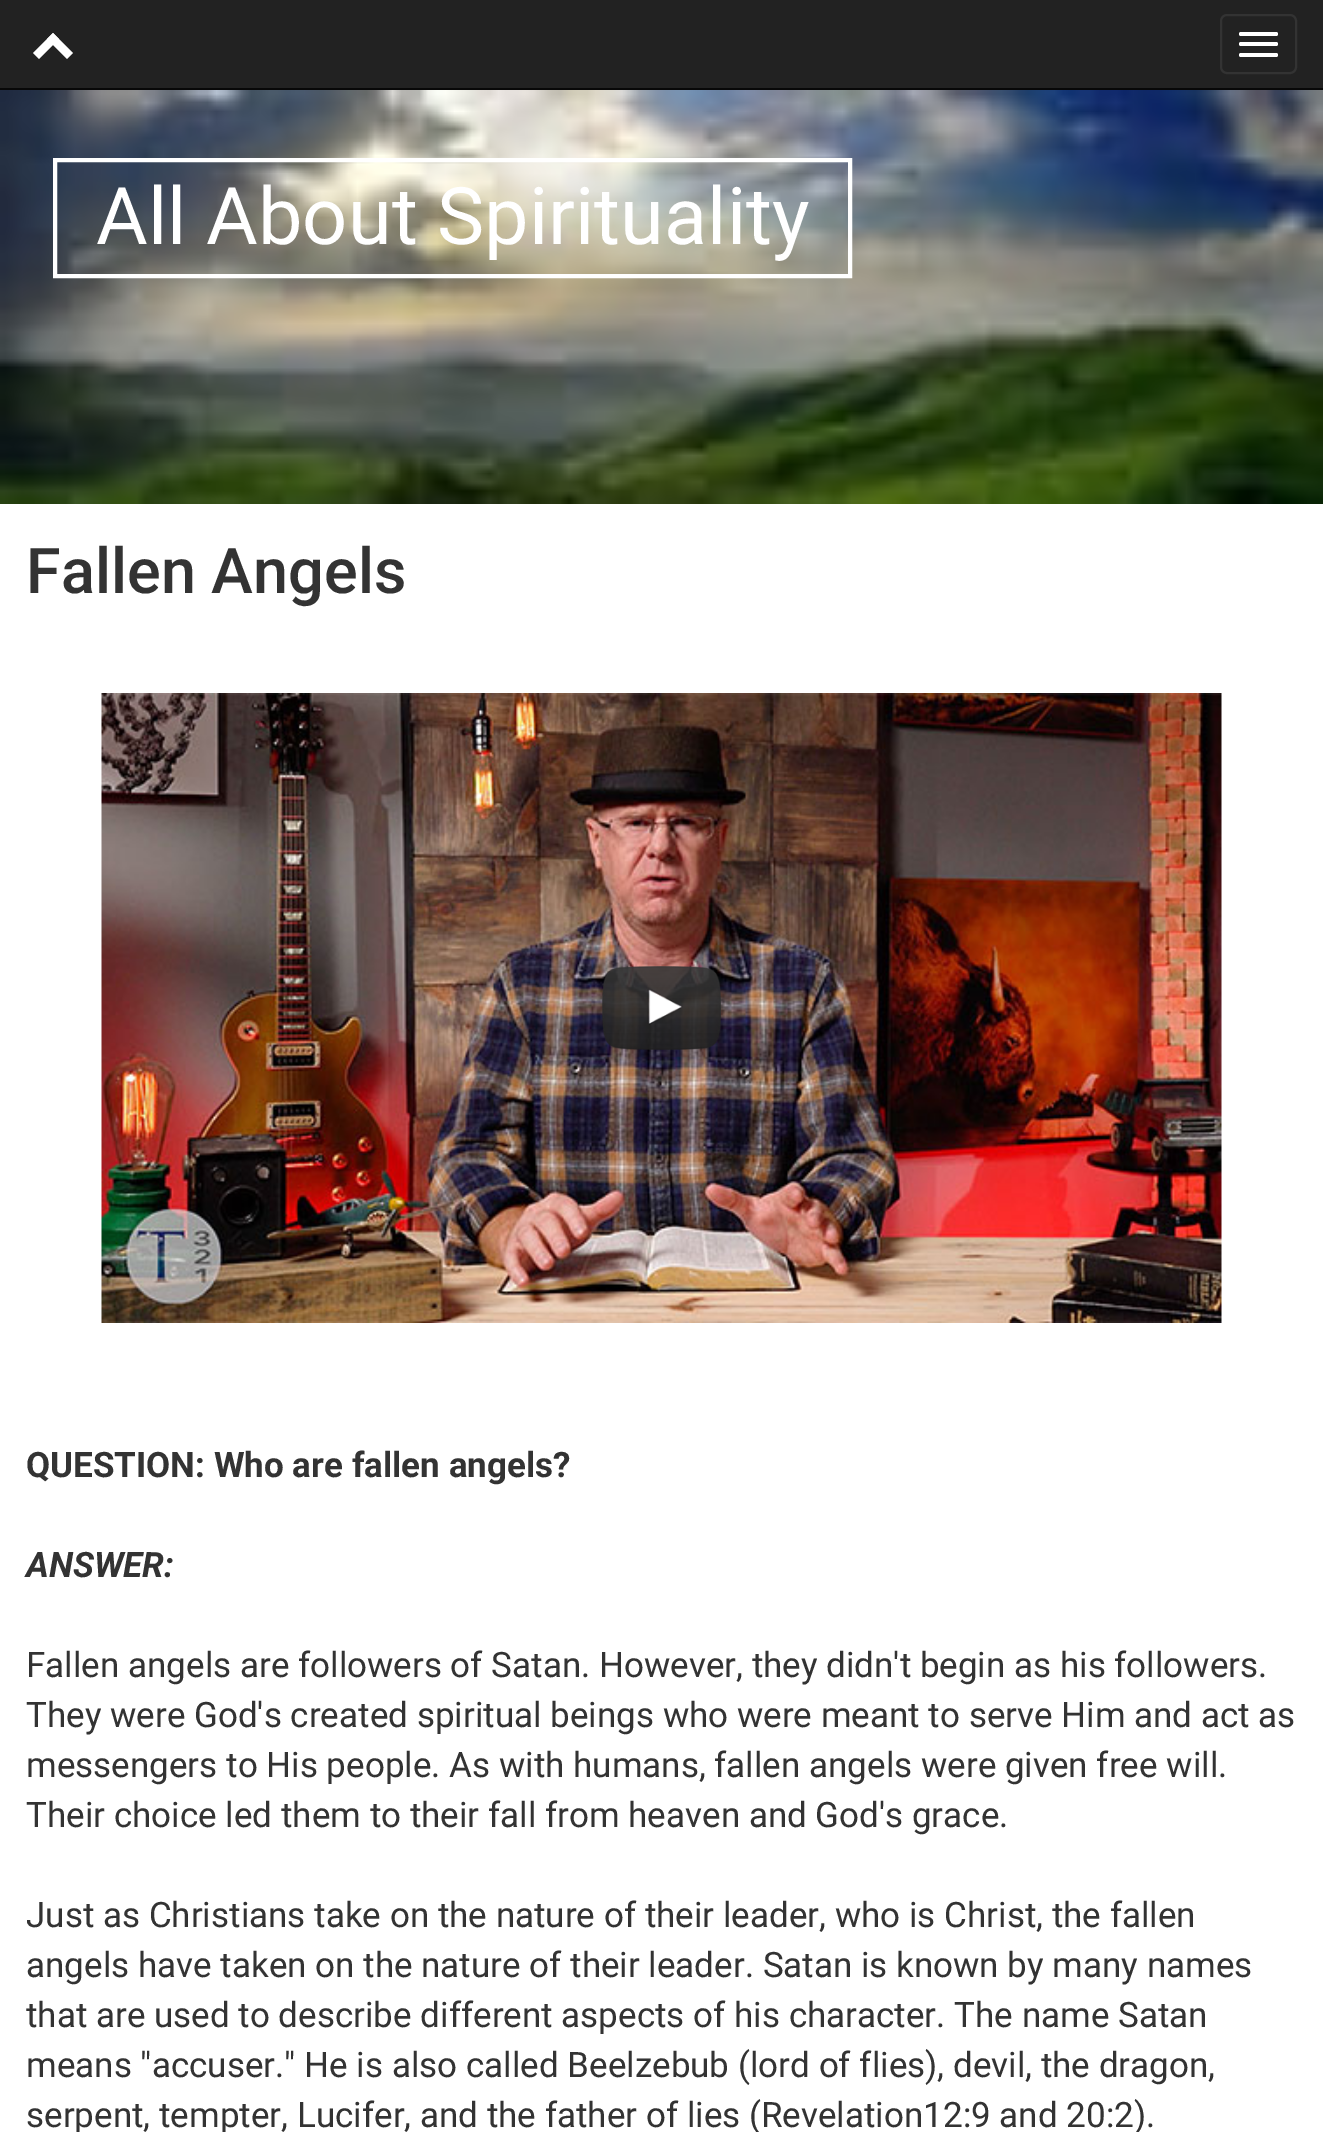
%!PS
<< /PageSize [1323 2132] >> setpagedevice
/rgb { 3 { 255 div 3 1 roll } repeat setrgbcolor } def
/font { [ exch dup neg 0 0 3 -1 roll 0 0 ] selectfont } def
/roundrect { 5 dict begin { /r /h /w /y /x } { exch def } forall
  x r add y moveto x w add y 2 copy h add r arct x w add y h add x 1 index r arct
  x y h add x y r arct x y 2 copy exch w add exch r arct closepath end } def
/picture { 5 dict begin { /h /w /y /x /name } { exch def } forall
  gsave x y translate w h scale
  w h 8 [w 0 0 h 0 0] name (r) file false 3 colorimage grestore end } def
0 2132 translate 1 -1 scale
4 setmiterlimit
255 255 255 rgb
0 0 1323 2132 rectfill
34 34 34 rgb
0 0 1323 88 rectfill
8 8 8 rgb
0 88 1323 2 rectfill
255 255 255 rgb
33 53 moveto 53 33 lineto 59 39 lineto 39 59 lineto closepath fill
47 39 moveto 53 33 lineto 73 53 lineto 67 59 lineto closepath fill
51 51 51 rgb
2 setlinewidth
1221 15 75 58 6 roundrect stroke
255 255 255 rgb
1239 32 39 4 2 roundrect fill
1239 42 39 4 2 roundrect fill
1239 53 39 4 2 roundrect fill
(img/1.rgb) 0 90 1323 414 picture
4 setlinewidth
55 160 795 116 rectstroke
(img/2.rgb) 101 693 1121 630 picture
(img/3.rgb) 602 966 119 84 picture
/Roboto-Regular 79.4 font
96 244 moveto (All About Spirituality) show
/Roboto-Medium 63 font
51 51 51 rgb
26 593 moveto (Fallen Angels) show
/Roboto-Bold 35 font
26 1477 moveto (QUESTION: Who are fallen angels?) show
/Roboto-BoldItalic 35 font
26 1577 moveto (ANSWER:) show
/Roboto-Regular 35 font
[
  [(Fallen angels are followers of Satan. However, they didn't begin as his followers.) 26 1677]
  [(They were God's created spiritual beings who were meant to serve Him and act as) 26 1727]
  [(messengers to His people. As with humans, fallen angels were given free will.) 26 1777]
  [(Their choice led them to their fall from heaven and God's grace.) 26 1827]
  [(Just as Christians take on the nature of their leader, who is Christ, the fallen) 26 1927]
  [(angels have taken on the nature of their leader. Satan is known by many names) 26 1977]
  [(that are used to describe different aspects of his character. The name Satan) 26 2027]
  [(means "accuser." He is also called Beelzebub \(lord of flies\), devil, the dragon,) 26 2077]
  [(serpent, tempter, Lucifer, and the father of lies \(Revelation12:9 and 20:2\).) 26 2127]
] { aload pop moveto show } forall
showpage
